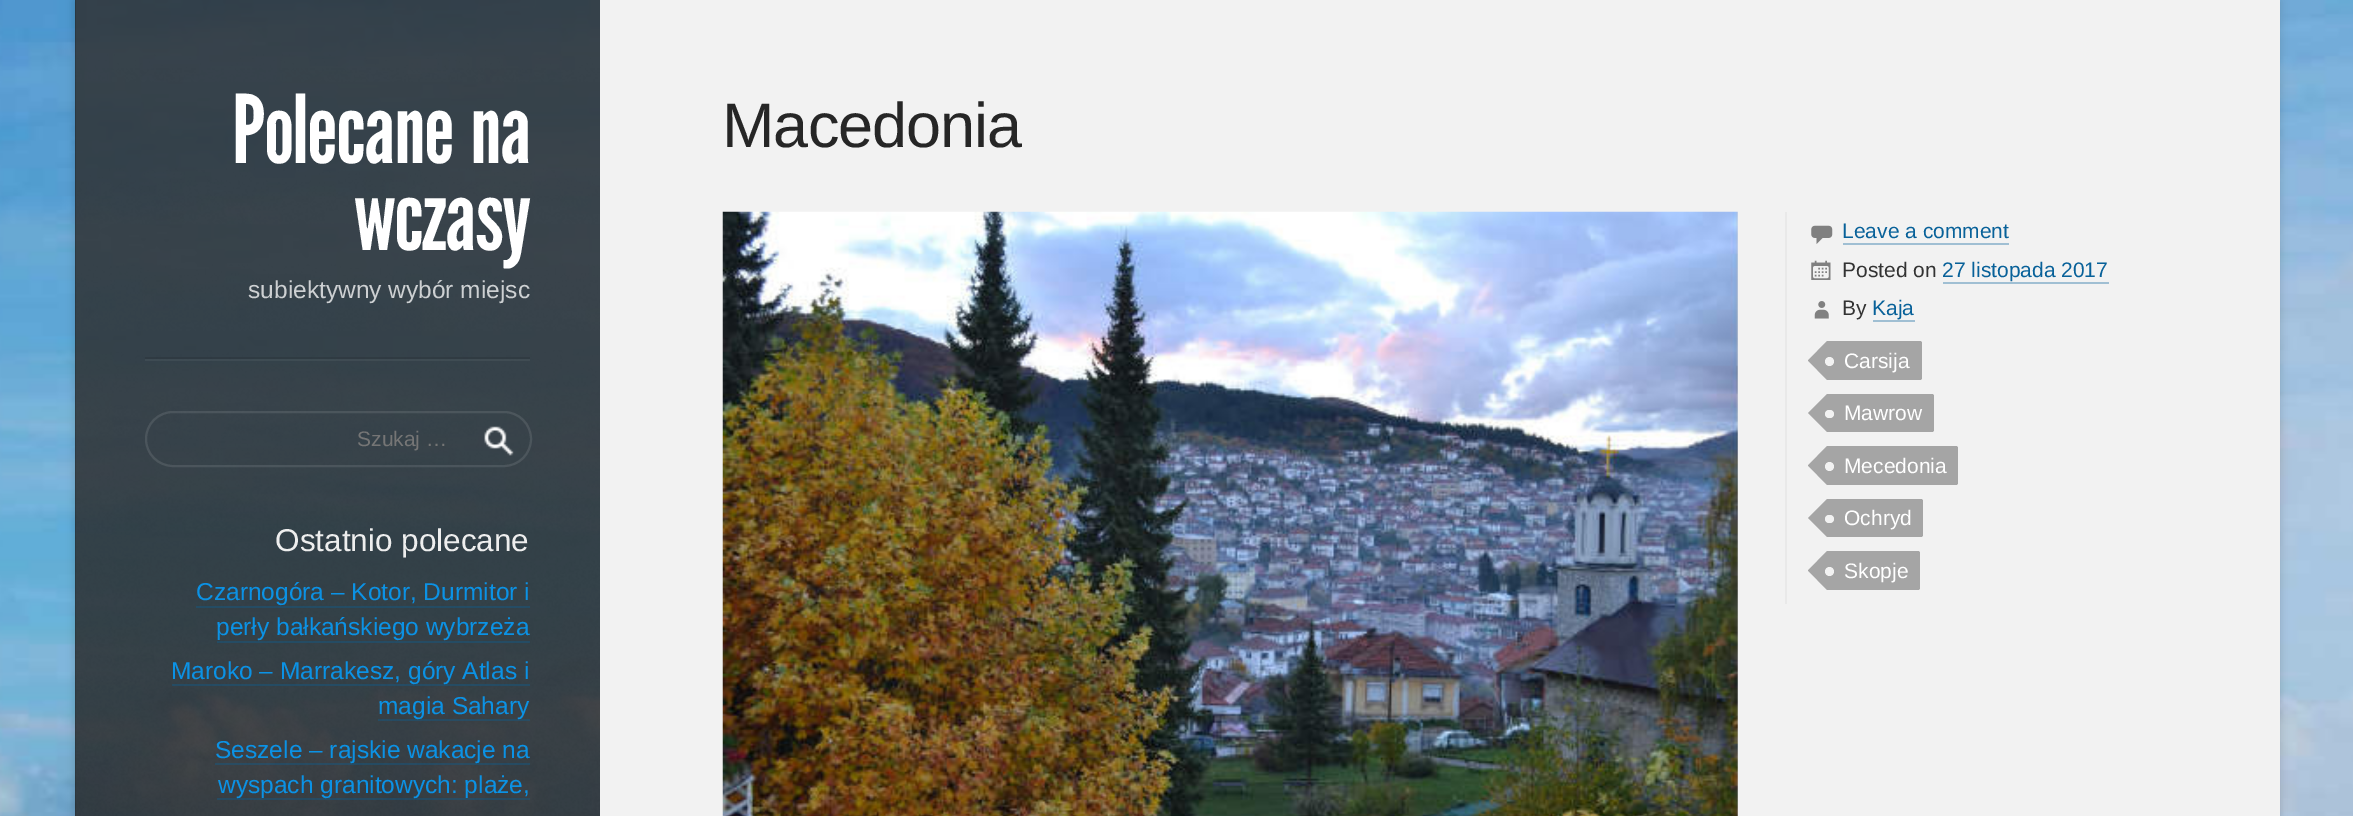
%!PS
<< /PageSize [2353 816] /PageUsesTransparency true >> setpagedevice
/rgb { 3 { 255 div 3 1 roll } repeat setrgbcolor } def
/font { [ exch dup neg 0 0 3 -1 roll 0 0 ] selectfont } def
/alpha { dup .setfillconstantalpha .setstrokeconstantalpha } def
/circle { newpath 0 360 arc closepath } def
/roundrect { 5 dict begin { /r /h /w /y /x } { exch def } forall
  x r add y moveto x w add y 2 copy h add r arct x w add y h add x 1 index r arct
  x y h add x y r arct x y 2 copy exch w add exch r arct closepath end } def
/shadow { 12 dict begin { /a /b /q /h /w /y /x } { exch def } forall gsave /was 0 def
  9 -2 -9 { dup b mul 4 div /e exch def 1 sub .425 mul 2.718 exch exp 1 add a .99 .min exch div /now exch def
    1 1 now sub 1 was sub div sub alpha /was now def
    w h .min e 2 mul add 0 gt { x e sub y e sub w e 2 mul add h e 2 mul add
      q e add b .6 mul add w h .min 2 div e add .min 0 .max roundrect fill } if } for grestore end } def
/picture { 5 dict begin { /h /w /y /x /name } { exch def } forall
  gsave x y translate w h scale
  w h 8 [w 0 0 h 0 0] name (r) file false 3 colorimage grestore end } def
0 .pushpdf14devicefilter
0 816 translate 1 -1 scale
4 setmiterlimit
255 255 255 rgb
0 0 2353 816 rectfill
(img/1.rgb) 0 0 2353 816 picture
gsave
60 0 moveto 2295 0 lineto 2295 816 lineto 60 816 lineto closepath 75 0 moveto 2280 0 lineto 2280 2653 lineto 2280 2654 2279 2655 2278 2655 curveto 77 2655 lineto 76 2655 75 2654 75 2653 curveto closepath eoclip newpath
0 0 0 rgb
75 0 2205 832 2 4.5 0.15 shadow
grestore
0.8 alpha
16 16 16 rgb
75 0 525 816 rectfill
1 alpha
(img/2.rgb) 75 0 525 816 picture
0.05 alpha
255 255 255 rgb
145 89 moveto 145 361 lineto 530 361 lineto 530 359 lineto 145 359 lineto closepath fill
0.1 alpha
0 0 0 rgb
145 357 385 2 rectfill
1 alpha
242 242 242 rgb
600 0 1680 816 rectfill
(img/3.rgb) 722 211 1016 605 picture
233 233 233 rgb
1785 212 2 392 rectfill
(img/4.rgb) 1811 225 22 19 picture
160 191 211 rgb
1843 243 166 2 rectfill
(img/5.rgb) 1811 260 20 20 picture
1943 282 166 2 rectfill
(img/6.rgb) 1814 301 15 18 picture
1873 320 42 2 rectfill
165 165 165 rgb
1827 341 moveto 1920 341 lineto 1921 341 1922 342 1922 343 curveto 1922 378 lineto 1922 379 1921 380 1920 380 curveto 1827 380 lineto closepath fill
1827 341 moveto 1827 380 lineto 1808 360.5 lineto closepath fill
242 242 242 rgb
1829.5 361.5 4.5 circle fill
165 165 165 rgb
1827 394 moveto 1932 394 lineto 1933 394 1934 395 1934 396 curveto 1934 430 lineto 1934 431 1933 432 1932 432 curveto 1827 432 lineto closepath fill
1827 394 moveto 1827 432 lineto 1808 413 lineto closepath fill
242 242 242 rgb
1825 410 9 8 4 roundrect fill
165 165 165 rgb
1827 446 moveto 1956 446 lineto 1957 446 1958 447 1958 448 curveto 1958 483 lineto 1958 484 1957 485 1956 485 curveto 1827 485 lineto closepath fill
1827 446 moveto 1827 485 lineto 1808 465.5 lineto closepath fill
242 242 242 rgb
1829.5 466.5 4.5 circle fill
165 165 165 rgb
1827 499 moveto 1921 499 lineto 1922 499 1923 500 1923 501 curveto 1923 535 lineto 1923 536 1922 537 1921 537 curveto 1827 537 lineto closepath fill
1827 499 moveto 1827 537 lineto 1808 518 lineto closepath fill
242 242 242 rgb
1825 515 9 8 4 roundrect fill
165 165 165 rgb
1827 551 moveto 1918 551 lineto 1919 551 1920 552 1920 553 curveto 1920 588 lineto 1920 589 1919 590 1918 590 curveto 1827 590 lineto closepath fill
1827 551 moveto 1827 590 lineto 1808 570.5 lineto closepath fill
242 242 242 rgb
1829.5 571.5 4.5 circle fill
(img/7.rgb) 484 426 30 30 picture
0.1 alpha
255 255 255 rgb
2 setlinewidth
146 412 385 54 27 roundrect stroke
0.35 alpha
[
  [196 606 334 2 8 97 153]
  [217 641 313 2 8 97 153]
  [172 684 358 2 8 97 153]
  [378 719 152 2 8 97 153]
  [215 763 315 2 8 97 153]
  [217 798 313 2 8 97 153]
] { aload pop rgb rectfill } forall
/LeagueGothic-Regular 94.5 font
1 alpha
255 255 255 rgb
232 163 moveto -1.75 0 (Polecane na) ashow
354 250 moveto -1.75 0 (wczasy) ashow
/LiberationSans-Regular 24.5 font
205 208 210 rgb
248 298 moveto (subiektywny wybór miejsc) show
/LiberationSans-Regular 63 font
38 38 38 rgb
722 147 moveto -1 0 (Macedonia) ashow
/LiberationSans-Regular 21 font
8 97 153 rgb
1842 238 moveto (Leave a comment) show
51 51 51 rgb
1842 277 moveto (Posted on) show
8 97 153 rgb
1942 277 moveto (27 listopada 2017) show
51 51 51 rgb
1842 315 moveto (By) show
8 97 153 rgb
1872 315 moveto (Kaja) show
255 255 255 rgb
[
  [(Carsija) 1844 368]
  [(Mawrow) 1844 420]
  [(Mecedonia) 1844 473]
  [(Ochryd) 1844 525]
  [(Skopje) 1844 578]
] { aload pop moveto show } forall
117 117 117 rgb
357 446 moveto (Szukaj …) show
/LiberationSans-Regular 31.5 font
238 238 238 rgb
275 551 moveto (Ostatnio polecane) show
/LiberationSans-Regular 24.5 font
11 146 229 rgb
[
  [(Czarnogóra – Kotor, Durmitor i) 196 600]
  [(perły bałkańskiego wybrzeża) 216 635]
  [(Maroko – Marrakesz, góry Atlas i) 171 679]
  [(magia Sahary) 378 714]
  [(Seszele – rajskie wakacje na) 215 758]
  [(wyspach granitowych: plaże,) 218 793]
] { aload pop moveto show } forall
.poppdf14devicefilter showpage
